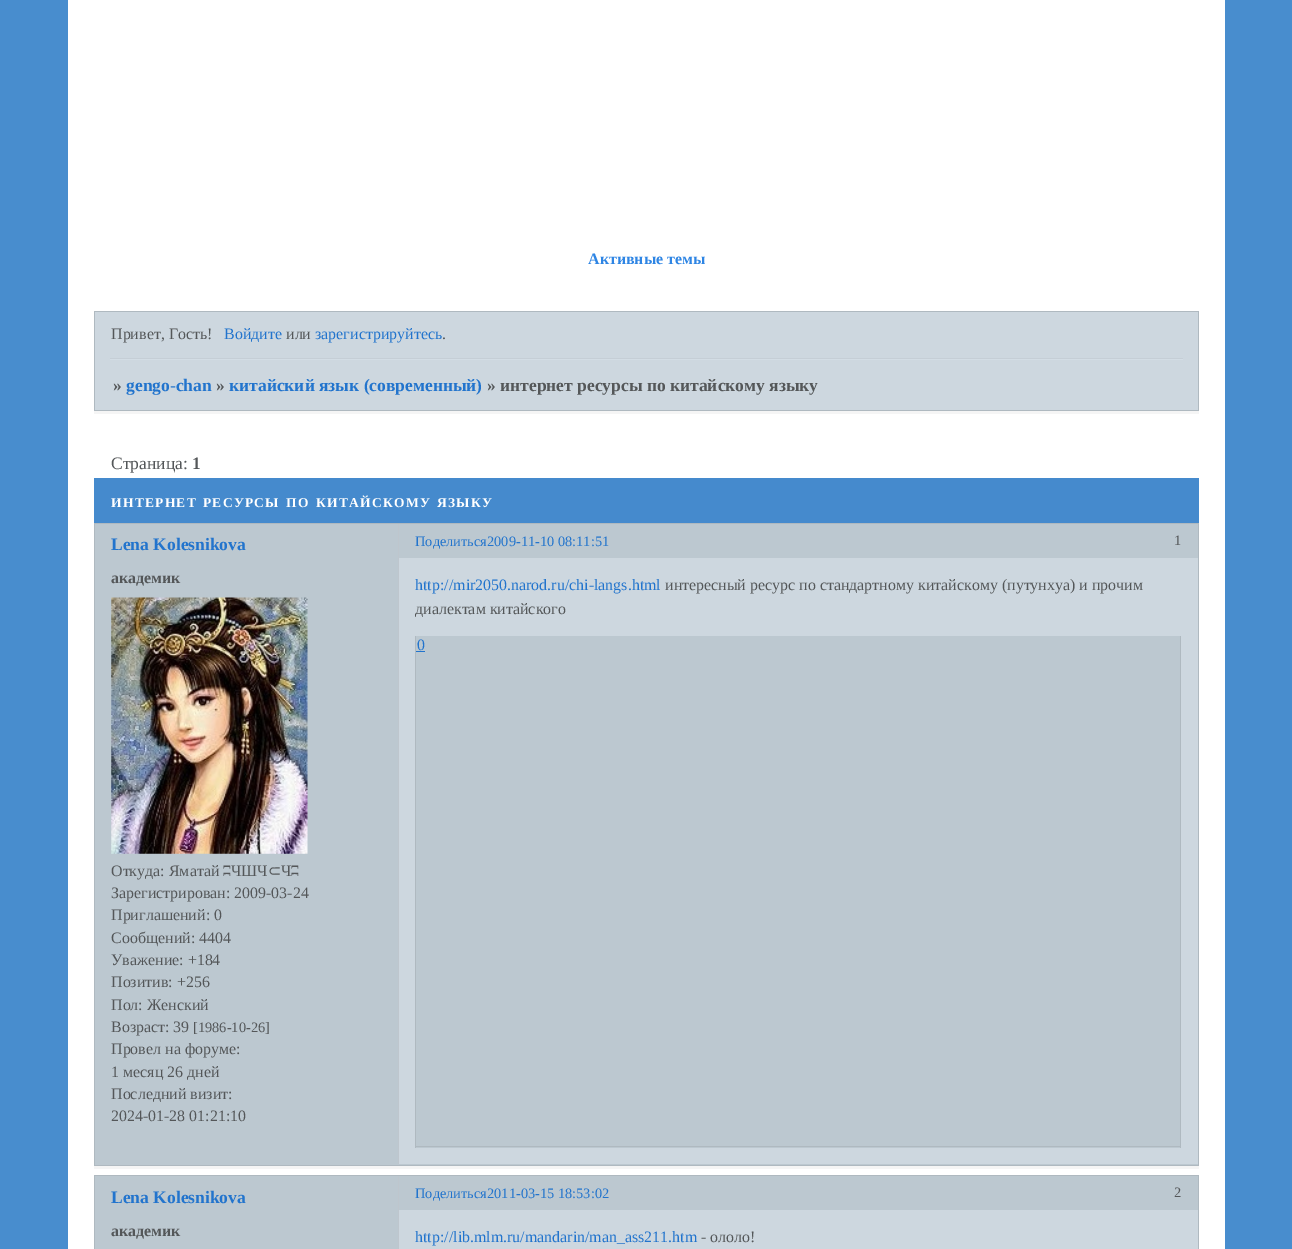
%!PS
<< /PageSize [1292 1249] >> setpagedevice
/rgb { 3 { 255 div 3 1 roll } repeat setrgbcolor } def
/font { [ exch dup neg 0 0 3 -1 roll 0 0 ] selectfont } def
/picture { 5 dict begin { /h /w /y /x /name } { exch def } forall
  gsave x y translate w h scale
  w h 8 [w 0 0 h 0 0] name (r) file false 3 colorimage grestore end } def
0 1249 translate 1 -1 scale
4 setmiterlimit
72 141 206 rgb
0 0 1292 1249 rectfill
[
  [68 0 1157 1249 255 255 255]
  [95 312 1103 98 205 215 223]
  [94 311 1105 1 175 185 192]
  [1198 311 1 100 175 185 192]
  [94 311 1 49 175 185 192]
  [110 358 1073 1 197 206 214]
  [110 359 1073 1 211 221 229]
  [94 411 1105 3 245 245 245]
  [94 410 1105 1 175 185 192]
  [94 358 1 53 175 185 192]
  [94 478 1105 45 69 138 205]
  [94 1166 1105 3 245 245 245]
  [95 524 1103 34 188 200 208]
  [94 523 1105 1 175 185 192]
  [1198 523 1 643 175 185 192]
  [94 523 1 36 175 185 192]
  [398 524 1 35 190 198 205]
  [95 558 1103 607 188 200 208]
  [94 1165 1105 1 175 185 192]
  [94 558 1 608 175 185 192]
] { aload pop rgb rectfill } forall
(img/1.rgb) 111 597 197 257 picture
[
  [399 558 799 606 205 215 223]
  [398 558 1 606 190 198 205]
  [416 636 764 512 188 200 208]
  [1180 636 1 512 175 185 192]
  [415 1146 766 1 175 185 192]
  [415 636 1 512 175 185 192]
  [416 651 9 1 34 116 205]
  [95 1176 1103 34 188 200 208]
  [94 1175 1105 1 175 185 192]
  [1198 1175 1 74 175 185 192]
  [94 1175 1 74 175 185 192]
  [398 1176 1 73 190 198 205]
  [95 1210 303 39 188 200 208]
  [399 1210 799 39 205 215 223]
] { aload pop rgb rectfill } forall
/LiberationSerif-Bold 15.95 font
46 133 228 rgb
588 264 moveto (Активные темы) show
/LiberationSerif-Regular 15.95 font
84 87 89 rgb
111 339 moveto (Привет, Гость!) show
34 116 205 rgb
224 339 moveto (Войдите) show
84 87 89 rgb
286 339 moveto (или) show
34 116 205 rgb
315 339 moveto (зарегистрируйтесь) show
84 87 89 rgb
442 339 moveto (.) show
/LiberationSerif-Bold 17.5 font
113 391 moveto (») show
34 116 205 rgb
126 391 moveto (gengo-chan) show
84 87 89 rgb
216 391 moveto (») show
34 116 205 rgb
229 391 moveto (китайский язык \(современный\)) show
84 87 89 rgb
487 391 moveto (» интернет ресурсы по китайскому языку) show
/LiberationSerif-Regular 17.5 font
111 469 moveto (Страница:) show
/LiberationSerif-Bold 17.5 font
192 469 moveto (1) show
/LiberationSerif-Bold 13.5 font
255 255 255 rgb
111 507 moveto 1.25 0 (ИНТЕРНЕТ) ashow
203 507 moveto 1.25 0 (РЕСУРСЫ) ashow
286 507 moveto 1.25 0 (ПО) ashow
316 507 moveto 1.25 0 (КИТАЙСКОМУ) ashow
437 507 moveto 1.25 0 (ЯЗЫКУ) ashow
/LiberationSerif-Regular 14.4 font
34 116 205 rgb
415 546 moveto (Поделиться2009-11-10 08:11:51) show
84 87 89 rgb
1174 545 moveto (1) show
/LiberationSerif-Bold 17.5 font
34 116 205 rgb
111 550 moveto (Lena Kolesnikova) show
/LiberationSerif-Bold 15.95 font
84 87 89 rgb
111 583 moveto (академик) show
/LiberationSerif-Regular 15.95 font
111 876 moveto (Откуда: Яматай ʭЧШЧ) show
/DejaVuSans-Regular 15.95 font
268 876 moveto (⊂) show
/LiberationSerif-Regular 15.95 font
[
  [(Чʭ) 281 876]
  [(Зарегистрирован: 2009-03-24) 111 898]
  [(Приглашений: 0) 111 920]
  [(Сообщений: 4404) 111 943]
  [(Уважение: +184) 111 965]
  [(Позитив: +256) 111 987]
  [(Пол: Женский) 111 1010]
  [(Возраст: 39) 111 1032]
] { aload pop moveto show } forall
/LiberationSerif-Regular 14.4 font
193 1032 moveto ([1986-10-26]) show
/LiberationSerif-Regular 15.95 font
[
  [(Провел на форуме:) 111 1054]
  [(1 месяц 26 дней) 111 1077]
  [(Последний визит:) 111 1099]
  [(2024-01-28 01:21:10) 111 1121]
] { aload pop moveto show } forall
34 116 205 rgb
415 590 moveto (http://mir2050.narod.ru/chi-langs.html) show
84 87 89 rgb
665 590 moveto (интересный ресурс по стандартному китайскому \(путунхуа\) и прочим) show
415 614 moveto (диалектам китайского) show
34 116 205 rgb
417 650 moveto (0) show
/LiberationSerif-Regular 14.4 font
415 1198 moveto (Поделиться2011-03-15 18:53:02) show
84 87 89 rgb
1174 1197 moveto (2) show
/LiberationSerif-Bold 17.5 font
34 116 205 rgb
111 1203 moveto (Lena Kolesnikova) show
/LiberationSerif-Bold 15.95 font
84 87 89 rgb
111 1236 moveto (академик) show
/LiberationSerif-Regular 15.95 font
34 116 205 rgb
415 1242 moveto (http://lib.mlm.ru/mandarin/man_ass211.htm) show
84 87 89 rgb
701 1242 moveto (- ололо!) show
showpage
